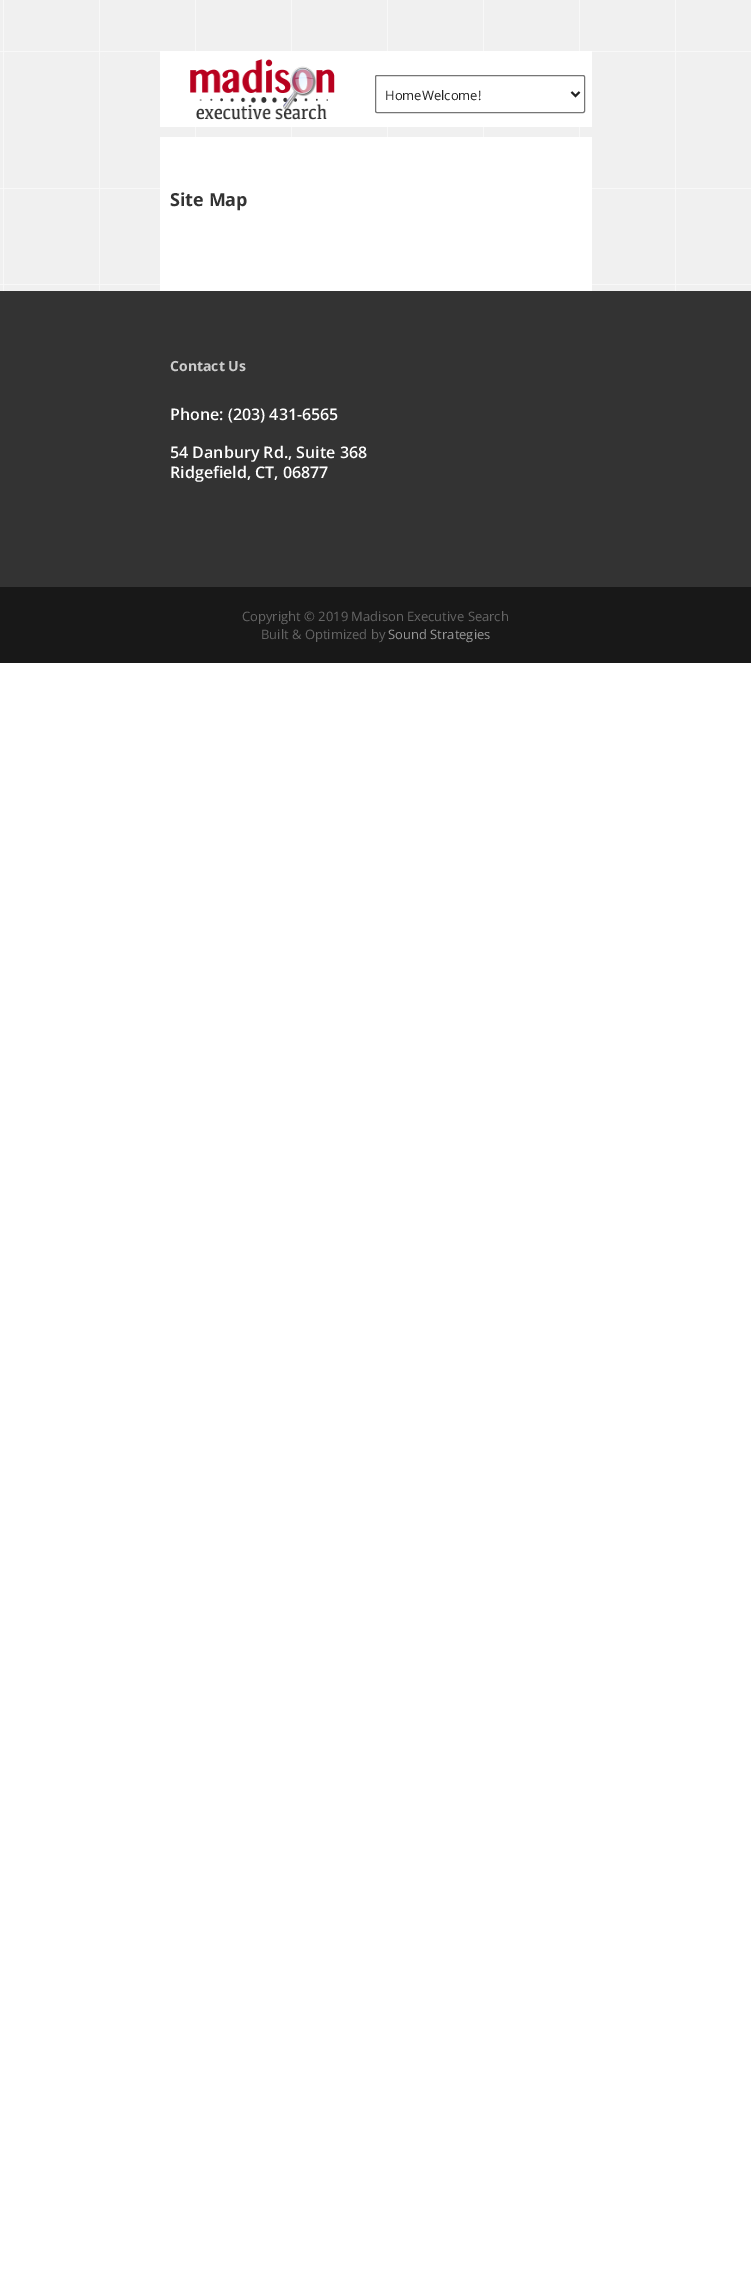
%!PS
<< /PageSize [751 2291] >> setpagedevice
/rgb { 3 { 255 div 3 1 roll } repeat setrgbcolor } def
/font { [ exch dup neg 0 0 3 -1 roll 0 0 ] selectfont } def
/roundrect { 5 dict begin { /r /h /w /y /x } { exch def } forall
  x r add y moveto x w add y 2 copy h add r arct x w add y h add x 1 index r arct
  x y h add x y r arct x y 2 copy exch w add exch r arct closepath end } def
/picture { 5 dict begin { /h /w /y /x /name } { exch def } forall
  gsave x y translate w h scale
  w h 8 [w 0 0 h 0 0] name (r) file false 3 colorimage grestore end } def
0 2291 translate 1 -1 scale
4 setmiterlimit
255 255 255 rgb
0 0 751 2291 rectfill
(img/1.rgb) 0 0 751 137 picture
160 51 432 76 rectfill
(img/2.rgb) 190 59 145 61 picture
118 118 118 rgb
375.5 75.5 209 37 1.5 roundrect stroke
34 34 34 rgb
2 setlinewidth
571.5 92 moveto 575.5 96 lineto 579.5 92 lineto stroke
(img/3.rgb) 0 137 751 154 picture
[
  [160 137 432 154 255 255 255]
  [0 291 751 296 51 51 51]
  [0 587 751 76 24 24 24]
] { aload pop rgb rectfill } forall
/OpenSans-Regular 13 font
34 34 34 rgb
385 100 moveto (HomeWelcome!) show
/OpenSans-Bold 18 font
51 51 51 rgb
170 206 moveto (Site Map) show
/OpenSans-Bold 14 font
204 204 204 rgb
170 371 moveto (Contact Us) show
/OpenSans-SemiBold 16 font
255 255 255 rgb
[
  [(Phone: \(203\) 431-6565) 170 420]
  [(54 Danbury Rd., Suite 368) 170 458]
  [(Ridgefield, CT, 06877) 170 478]
] { aload pop moveto show } forall
/OpenSans-Regular 13 font
102 102 102 rgb
242 621 moveto (Copyright © 2019 Madison Executive Search) show
261 639 moveto (Built & Optimized by) show
153 153 153 rgb
388 639 moveto (Sound Strategies) show
showpage
